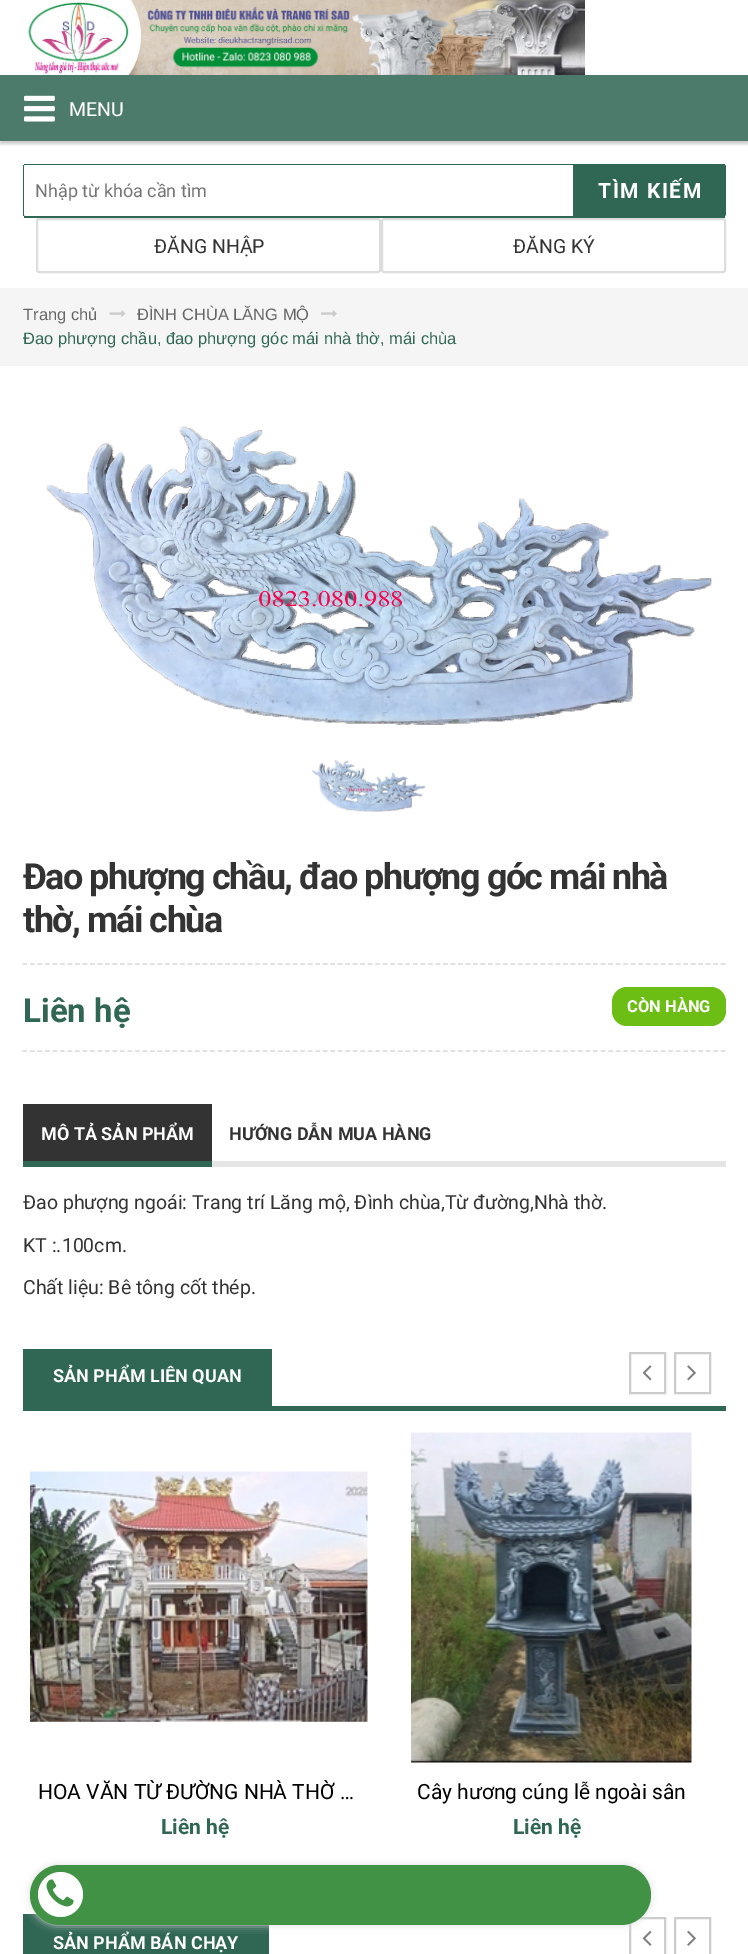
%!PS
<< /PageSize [748 1954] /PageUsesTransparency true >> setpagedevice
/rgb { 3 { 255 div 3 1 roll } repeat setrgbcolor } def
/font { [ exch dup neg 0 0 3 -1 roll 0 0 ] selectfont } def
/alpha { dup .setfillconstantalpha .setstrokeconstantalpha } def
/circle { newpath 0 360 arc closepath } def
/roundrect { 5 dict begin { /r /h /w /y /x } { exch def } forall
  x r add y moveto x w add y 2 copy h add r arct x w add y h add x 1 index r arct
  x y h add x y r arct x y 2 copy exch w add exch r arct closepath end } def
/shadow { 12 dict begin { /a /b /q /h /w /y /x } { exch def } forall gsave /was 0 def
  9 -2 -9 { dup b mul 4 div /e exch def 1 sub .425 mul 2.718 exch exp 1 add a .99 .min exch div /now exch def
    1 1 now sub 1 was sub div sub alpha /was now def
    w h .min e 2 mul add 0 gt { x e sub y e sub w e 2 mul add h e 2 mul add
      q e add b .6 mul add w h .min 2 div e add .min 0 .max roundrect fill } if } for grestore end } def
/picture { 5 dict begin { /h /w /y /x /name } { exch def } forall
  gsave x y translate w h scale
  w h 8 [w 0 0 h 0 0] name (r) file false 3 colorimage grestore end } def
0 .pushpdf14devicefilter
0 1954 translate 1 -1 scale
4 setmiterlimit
255 255 255 rgb
0 0 748 1954 rectfill
(img/1.rgb) 28 0 557 75 picture
0 0 0 rgb
0 78 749 66 0 1.5 0.2 shadow
76 123 107 rgb
0 75 748 66 rectfill
(img/2.rgb) 24 95 31 27 picture
[
  [24 164 701 2 48 103 84]
  [24 216 701 2 48 103 84]
  [23 165 2 51 48 103 84]
] { aload pop rgb rectfill } forall
255 255 255 rgb
26 165 moveto 25 165 24 166 24 166 curveto 24 214 lineto 24 215 25 216 26 216 curveto 723 216 lineto 725 216 726 215 726 214 curveto 726 166 lineto 726 166 725 165 723 165 curveto closepath fill
26 165 moveto 25 165 24 166 24 166 curveto 24 214 lineto 24 215 25 216 26 216 curveto 723 216 lineto 725 216 726 215 726 214 curveto 726 166 lineto 726 166 725 165 723 165 curveto closepath 26 167 moveto 26 214 lineto 724 214 lineto 724 167 lineto closepath eofill
48 103 84 rgb
573 216 moveto 573 165 lineto 723 165 lineto 725 165 726 166 726 166 curveto 726 214 lineto 726 215 725 216 723 216 curveto closepath fill
575 166 moveto 575 216 lineto 573 216 lineto 573 165 lineto 723 165 lineto 725 165 726 166 726 166 curveto 726 214 lineto 726 215 725 216 724 216 curveto 724 166 lineto closepath fill
221 221 221 rgb
2 setlinewidth
37 219 343 53 2 roundrect stroke
382 219 343 53 2 roundrect stroke
245 245 245 rgb
0 288 748 78 rectfill
(img/3.rgb) 109 310 17 7 picture
(img/4.rgb) 321 310 16 7 picture
(img/5.rgb) 46 426 666 299 picture
(img/6.rgb) 311 760 115 52 picture
221 221 221 rgb
1.5 setlinewidth
[4.5 3.01] 0 setdash
22.5 964 moveto 726 964 lineto stroke
22.5 1051 moveto 726 1051 lineto stroke
109 190 20 rgb
612 987 114 39 15 roundrect fill
[
  [212 1161 514 6 229 229 229]
  [23 1104 189 57 51 51 51]
  [23 1161 189 6 48 103 84]
  [23 1349 249 57 48 103 84]
  [23 1406 703 5 48 103 84]
] { aload pop rgb rectfill } forall
204 204 204 rgb
2 setlinewidth
[] 0 setdash
630 1353 35 40 rectstroke
(img/7.rgb) 642 1365 10 16 picture
675 1353 35 40 rectstroke
(img/8.rgb) 687 1365 9 16 picture
(img/9.rgb) 30 1471 338 251 picture
(img/10.rgb) 411 1432 281 331 picture
48 103 84 rgb
23 1914 246 40 rectfill
204 204 204 rgb
630 1918 35 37 rectstroke
(img/11.rgb) 642 1930 10 16 picture
675 1918 35 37 rectstroke
(img/12.rgb) 687 1930 9 16 picture
221 221 221 rgb
30 1865 621 60 30 4 1 shadow
66 146 69 rgb
30 1865 621 60 30 roundrect fill
255 255 255 rgb
60.5 1894.5 22.5 circle fill
(img/13.rgb) 46 1879 28 28 picture
/Roboto-Regular 19.5 font
69 116 moveto (MENU) show
/Roboto-Regular 18 font
117 117 117 rgb
35 197 moveto (Nhập từ khóa cần tìm) show
/Roboto-Bold 21 font
255 255 255 rgb
598 198 moveto 1.5 0 (TÌM KIẾM) ashow
/Roboto-Regular 19.5 font
51 51 51 rgb
154 253 moveto (ĐĂNG NHẬP) show
513 253 moveto (ĐĂNG KÝ) show
/LiberationSans-Regular 16.5 font
102 102 102 rgb
23 320 moveto (Trang chủ) show
137 320 moveto (ĐÌNH CHÙA LĂNG MỘ) show
48 103 84 rgb
23 344 moveto (Đao phượng chầu, đao phượng góc mái nhà thờ, mái chùa) show
/Roboto-Bold 36 font
51 51 51 rgb
23 889 moveto -1.5 0 (Đao phượng chầu, đao phượng góc mái nhà) ashow
23 932 moveto -1.5 0 (thờ, mái chùa) ashow
/Roboto-Bold 33 font
48 103 84 rgb
23 1022 moveto (Liên hệ) show
/Roboto-Bold 16.5 font
255 255 255 rgb
627 1012 moveto (CÒN HÀNG) show
/Roboto-Bold 18 font
41 1140 moveto (MÔ TẢ SẢN PHẨM) show
51 51 51 rgb
229 1140 moveto (HƯỚNG DẪN MUA HÀNG) show
/Roboto-Regular 19.5 font
[
  [(Đao phượng ngoái: Trang trí Lăng mộ, Đình chùa,Từ đường,Nhà thờ.) 23 1209]
  [(KT :.100cm.) 23 1252]
  [(Chất liệu: Bê tông cốt thép.) 23 1294]
] { aload pop moveto show } forall
/Roboto-Bold 18 font
255 255 255 rgb
53 1382 moveto (SẢN PHẨM LIÊN QUAN) show
/Roboto-Regular 21 font
0 0 0 rgb
38 1799 moveto (HOA VĂN TỪ ĐƯỜNG NHÀ THỜ …) show
/Roboto-Bold 21 font
48 103 84 rgb
161 1834 moveto (Liên hệ) show
/Roboto-Regular 21 font
0 0 0 rgb
417 1799 moveto (Cây hương cúng lễ ngoài sân) show
/Roboto-Bold 21 font
48 103 84 rgb
513 1834 moveto (Liên hệ) show
/Roboto-Bold 18 font
255 255 255 rgb
53 1949 moveto (SẢN PHẨM BÁN CHẠY) show
.poppdf14devicefilter showpage
